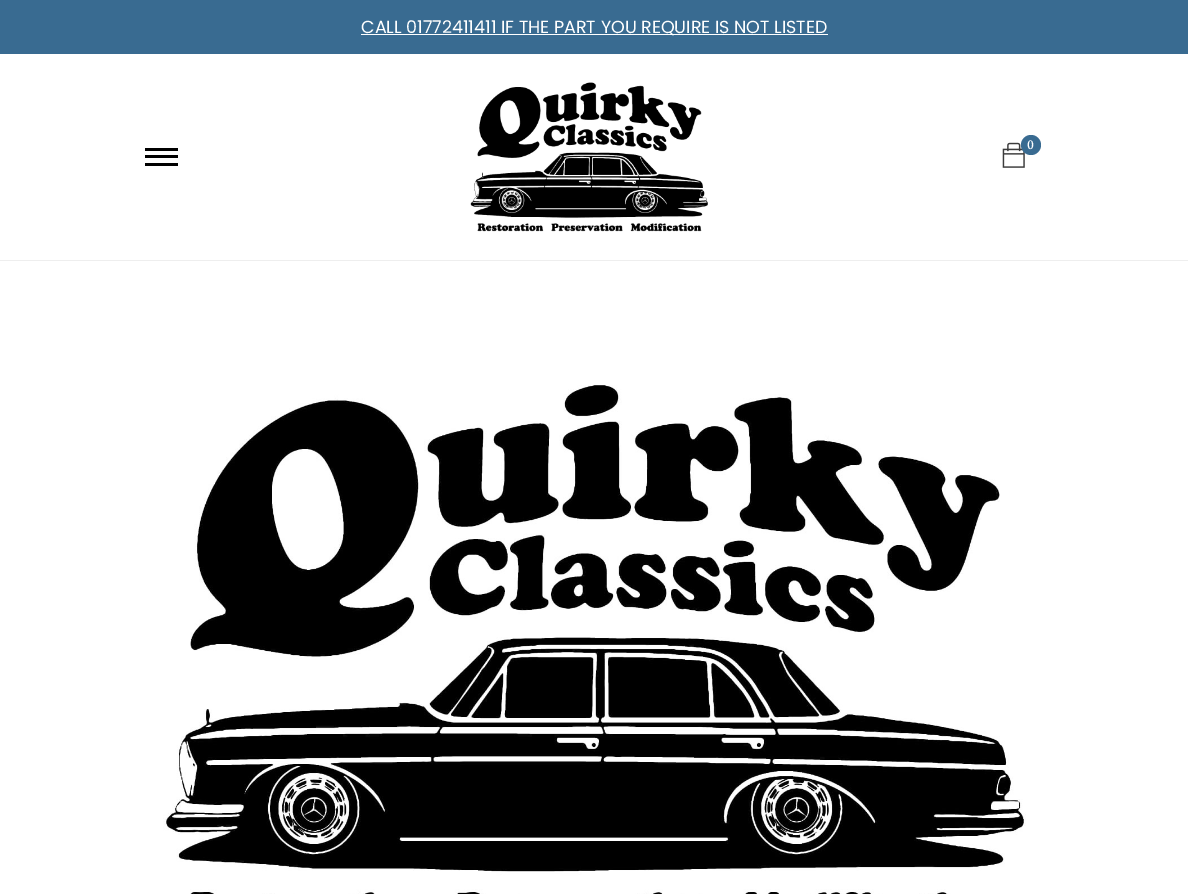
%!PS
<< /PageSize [1188 894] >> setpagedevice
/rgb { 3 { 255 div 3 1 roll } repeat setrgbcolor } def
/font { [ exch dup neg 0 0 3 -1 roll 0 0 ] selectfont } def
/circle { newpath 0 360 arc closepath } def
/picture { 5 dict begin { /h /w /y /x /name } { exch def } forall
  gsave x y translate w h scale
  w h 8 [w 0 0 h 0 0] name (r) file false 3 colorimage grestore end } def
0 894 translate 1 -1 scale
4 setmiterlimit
255 255 255 rgb
0 0 1188 894 rectfill
[
  [0 0 1188 54 57 107 145]
  [361 34 467 1 255 255 255]
  [0 260 1188 1 238 238 238]
] { aload pop rgb rectfill } forall
(img/1.rgb) 470 82 238 150 picture
(img/2.rgb) 1002 142 23 26 picture
57 107 145 rgb
1031 145 10 circle fill
[
  [145 155 33 3 0 0 0]
  [145 148 33 3 0 0 0]
  [145 163 33 3 0 0 0]
] { aload pop rgb rectfill } forall
(img/3.rgb) 163 385 863 509 picture
/Poppins-Regular 17.5 font
255 255 255 rgb
361 33 moveto (CALL 01772411411 IF THE PART YOU REQUIRE IS NOT LISTED) show
/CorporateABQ-Bold 12 font
1027 149 moveto (0) show
showpage
